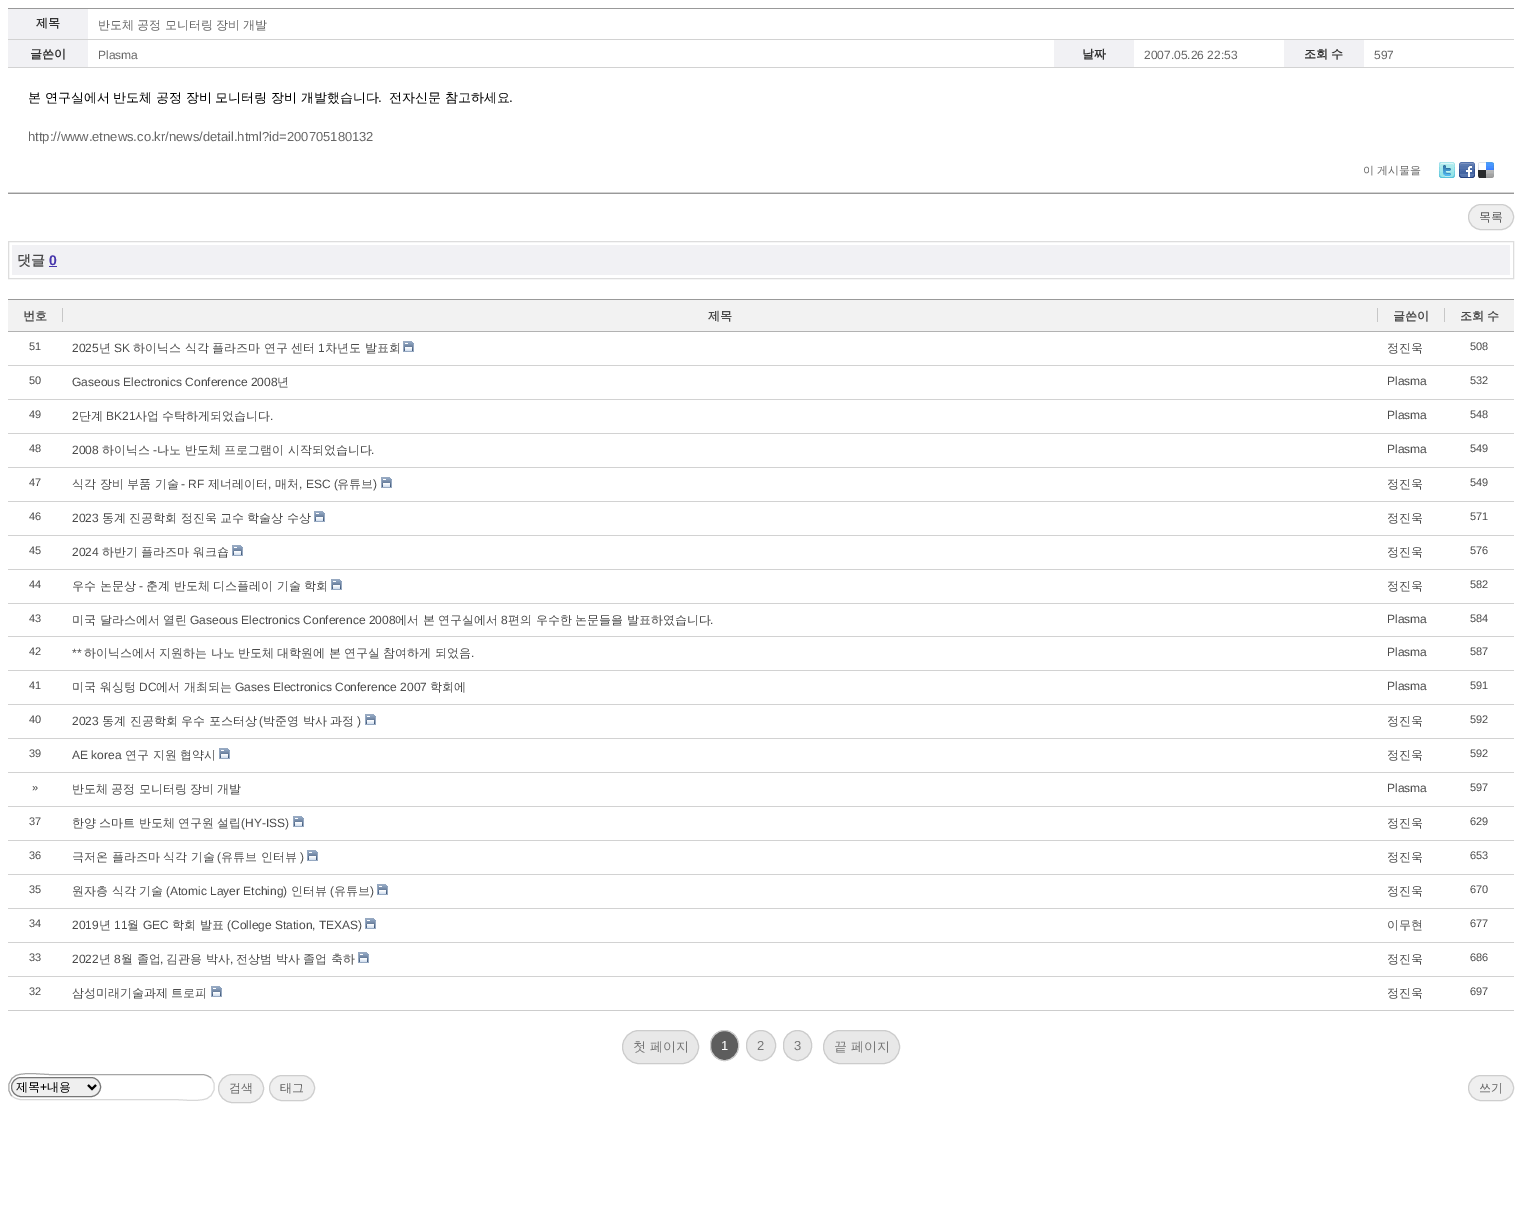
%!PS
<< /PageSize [1522 1228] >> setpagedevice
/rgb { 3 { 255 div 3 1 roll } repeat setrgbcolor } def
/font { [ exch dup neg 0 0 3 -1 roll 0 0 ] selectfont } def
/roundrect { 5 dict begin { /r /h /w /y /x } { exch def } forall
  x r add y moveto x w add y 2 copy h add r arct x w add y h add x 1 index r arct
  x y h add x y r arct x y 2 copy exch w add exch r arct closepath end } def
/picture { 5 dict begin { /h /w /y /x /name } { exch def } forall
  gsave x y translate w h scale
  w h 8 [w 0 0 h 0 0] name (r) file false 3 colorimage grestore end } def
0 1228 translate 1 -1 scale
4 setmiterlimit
255 255 255 rgb
0 0 1522 1228 rectfill
[
  [8 8 1506 1 153 153 153]
  [8 193 1506 1 153 153 153]
  [8 9 80 30 241 241 244]
  [8 39 1506 1 210 210 210]
  [8 40 80 27 241 241 244]
  [8 67 1506 1 210 210 210]
  [1054 40 80 27 241 241 244]
  [1284 40 80 27 241 241 244]
  [8 192 1506 1 210 210 210]
] { aload pop rgb rectfill } forall
(img/1.rgb) 1439 162 16 16 picture
(img/2.rgb) 1459 162 16 16 picture
(img/3.rgb) 1478 162 16 16 picture
239 239 239 rgb
1468.5 204.5 45 25 12.5 roundrect gsave fill grestore
206 206 206 rgb
stroke
221 221 221 rgb
8.5 241.5 1505 37 rectstroke
[
  [12 245 1498 30 241 241 244]
  [49 266 8 1 71 54 172]
  [8 1010 1506 1 205 205 205]
  [8 300 1506 31 242 242 242]
  [8 299 1506 1 153 153 153]
  [8 331 1506 1 178 178 178]
  [62 308 1 14 199 199 199]
  [1377 308 1 14 199 199 199]
  [1444 308 1 14 199 199 199]
  [8 365 1506 1 210 210 210]
] { aload pop rgb rectfill } forall
(img/4.rgb) 403 341 11 11 picture
[
  [8 399 1506 1 210 210 210]
  [8 433 1506 1 210 210 210]
  [8 467 1506 1 210 210 210]
  [8 501 1506 1 210 210 210]
] { aload pop rgb rectfill } forall
(img/4.rgb) 381 477 11 11 picture
8 535 1506 1 rectfill
(img/4.rgb) 314 511 11 11 picture
8 569 1506 1 rectfill
(img/4.rgb) 232 545 11 11 picture
8 603 1506 1 rectfill
(img/4.rgb) 331 579 11 11 picture
[
  [8 636 1506 1 210 210 210]
  [8 670 1506 1 210 210 210]
  [8 704 1506 1 210 210 210]
  [8 738 1506 1 210 210 210]
] { aload pop rgb rectfill } forall
(img/4.rgb) 365 714 11 11 picture
8 772 1506 1 rectfill
(img/4.rgb) 219 748 11 11 picture
8 806 1506 1 rectfill
8 840 1506 1 rectfill
(img/4.rgb) 293 816 11 11 picture
8 874 1506 1 rectfill
(img/4.rgb) 307 850 11 11 picture
8 908 1506 1 rectfill
(img/4.rgb) 377 884 11 11 picture
8 942 1506 1 rectfill
(img/4.rgb) 365 918 11 11 picture
8 976 1506 1 rectfill
(img/4.rgb) 358 952 11 11 picture
(img/4.rgb) 211 986 11 11 picture
232 232 232 rgb
622.5 1030.5 76 33 16.5 roundrect gsave fill grestore
204 204 204 rgb
stroke
93 93 93 rgb
710.5 1030.5 28 30 14 roundrect gsave fill grestore
204 204 204 rgb
stroke
232 232 232 rgb
746.5 1030.5 29 30 14.5 roundrect gsave fill grestore
204 204 204 rgb
stroke
232 232 232 rgb
783.5 1030.5 28 30 14 roundrect gsave fill grestore
204 204 204 rgb
stroke
232 232 232 rgb
823.5 1030.5 76 33 16.5 roundrect gsave fill grestore
204 204 204 rgb
stroke
216 216 216 rgb
211 1078 moveto 217.5 1084.5 214.5 1096.5 205.5 1099 curveto 195 1102 183 1099.5 172 1099.5 curveto 20 1099.5 lineto 17 1099 14 1098 12 1096 curveto stroke
166 166 166 rgb
12 1096 moveto 5.5 1089.5 8.5 1077.5 17.5 1075 curveto 28 1072 40 1074.5 51 1074.5 curveto 203 1074.5 lineto 206 1075 209 1076 211 1078 curveto stroke
239 239 239 rgb
11.5 1077.5 89 19 9.5 roundrect gsave fill grestore
118 118 118 rgb
stroke
0 0 0 rgb
2 setlinewidth
88 1085 moveto 92 1089 lineto 96 1085 lineto stroke
239 239 239 rgb
218.5 1074.5 45 28 14 roundrect gsave fill grestore
206 206 206 rgb
1 setlinewidth
stroke
239 239 239 rgb
269.5 1075.5 45 25 12.5 roundrect gsave fill grestore
206 206 206 rgb
stroke
239 239 239 rgb
1468.5 1075.5 45 25 12.5 roundrect gsave fill grestore
206 206 206 rgb
stroke
/WenQuanYiZenHei-Bold 12 font
51 51 51 rgb
36 27 moveto (제목) show
/WenQuanYiZenHei-Medium 12 font
102 102 102 rgb
98 29 moveto -0.25 0 32 (반도체 공정 모니터링 장비 개발) widthshow
/WenQuanYiZenHei-Bold 12 font
51 51 51 rgb
30 58 moveto (글쓴이) show
/LiberationSans-Regular 12 font
102 102 102 rgb
98 59 moveto (Plasma) show
/WenQuanYiZenHei-Bold 12 font
51 51 51 rgb
1082 58 moveto (날짜) show
/LiberationSans-Regular 12 font
102 102 102 rgb
1144 59 moveto (2007.05.26 22:53) show
/WenQuanYiZenHei-Bold 12 font
51 51 51 rgb
1304 58 moveto -0.25 0 32 (조회 수) widthshow
/LiberationSans-Regular 12 font
102 102 102 rgb
1374 59 moveto (597) show
/WenQuanYiZenHei-Medium 13 font
0 0 0 rgb
28 102 moveto -0.25 0 32 (본 연구실에서 반도체 공정 장비 모니터링 장비 개발했습니다) widthshow
/LiberationSans-Regular 13 font
378 102 moveto (.) show
/WenQuanYiZenHei-Medium 13 font
389 102 moveto -0.25 0 32 (전자신문 참고하세요) widthshow
/LiberationSans-Regular 13 font
509 102 moveto (.) show
102 102 102 rgb
28 141 moveto (http://www.etnews.co.kr/news/detail.html?id=200705180132) show
/WenQuanYiZenHei-Medium 11 font
1363 174 moveto (이 게시물을) show
/WenQuanYiZenHei-Medium 12 font
96 96 96 rgb
1479 221 moveto (목록) show
/WenQuanYiZenHei-Bold 14 font
74 74 74 rgb
17 265 moveto (댓글) show
/LiberationSans-Bold 14 font
71 54 172 rgb
49 265 moveto (0) show
/WenQuanYiZenHei-Bold 12 font
74 74 74 rgb
[
  [(번호) 23 320]
  [(제목) 708 320]
  [(글쓴이) 1393 320]
] { aload pop moveto show } forall
1460 320 moveto -0.25 0 32 (조회 수) widthshow
/LiberationSans-Regular 11 font
29 350 moveto (51) show
/LiberationSans-Regular 12 font
72 352 moveto (2025) show
/WenQuanYiZenHei-Medium 12 font
99 352 moveto (년) show
/LiberationSans-Regular 12 font
114 352 moveto (SK) show
/WenQuanYiZenHei-Medium 12 font
133 352 moveto (하이닉스 식각 플라즈마 연구 센터) show
/LiberationSans-Regular 12 font
318 352 moveto (1) show
/WenQuanYiZenHei-Medium 12 font
325 352 moveto (차년도 발표회) show
1387 352 moveto (정진욱) show
/LiberationSans-Regular 11 font
1470 350 moveto (508) show
29 384 moveto (50) show
/LiberationSans-Regular 12 font
72 386 moveto (Gaseous Electronics Conference 2008) show
/WenQuanYiZenHei-Medium 12 font
277 386 moveto (년) show
/LiberationSans-Regular 12 font
1387 385 moveto (Plasma) show
/LiberationSans-Regular 11 font
1470 384 moveto (532) show
29 418 moveto (49) show
/LiberationSans-Regular 12 font
72 420 moveto (2) show
/WenQuanYiZenHei-Medium 12 font
79 420 moveto (단계) show
/LiberationSans-Regular 12 font
106 420 moveto (BK21) show
/WenQuanYiZenHei-Medium 12 font
135 420 moveto -0.25 0 32 (사업 수탁하게되었습니다) widthshow
/LiberationSans-Regular 12 font
270 420 moveto (.) show
1387 419 moveto (Plasma) show
/LiberationSans-Regular 11 font
1470 418 moveto (548) show
29 452 moveto (48) show
/LiberationSans-Regular 12 font
72 454 moveto (2008) show
/WenQuanYiZenHei-Medium 12 font
102 454 moveto (하이닉스) show
/LiberationSans-Regular 12 font
153 454 moveto (-) show
/WenQuanYiZenHei-Medium 12 font
157 454 moveto (나노 반도체 프로그램이 시작되었습니다) show
/LiberationSans-Regular 12 font
371 454 moveto (.) show
1387 453 moveto (Plasma) show
/LiberationSans-Regular 11 font
1470 452 moveto (549) show
29 486 moveto (47) show
/WenQuanYiZenHei-Medium 12 font
72 488 moveto (식각 장비 부품 기술) show
/LiberationSans-Regular 12 font
181 488 moveto (- RF) show
/WenQuanYiZenHei-Medium 12 font
208 488 moveto (제너레이터) show
/LiberationSans-Regular 12 font
268 488 moveto (,) show
/WenQuanYiZenHei-Medium 12 font
275 488 moveto (매처) show
/LiberationSans-Regular 12 font
299 488 moveto (, ESC \() show
/WenQuanYiZenHei-Medium 12 font
337 488 moveto (유튜브) show
/LiberationSans-Regular 12 font
373 488 moveto (\)) show
/WenQuanYiZenHei-Medium 12 font
1387 488 moveto (정진욱) show
/LiberationSans-Regular 11 font
1470 486 moveto (549) show
29 520 moveto (46) show
/LiberationSans-Regular 12 font
72 522 moveto (2023) show
/WenQuanYiZenHei-Medium 12 font
102 522 moveto -0.25 0 32 (동계 진공학회 정진욱 교수 학술상 수상) widthshow
1387 522 moveto (정진욱) show
/LiberationSans-Regular 11 font
1470 520 moveto (571) show
29 554 moveto (45) show
/LiberationSans-Regular 12 font
72 556 moveto (2024) show
/WenQuanYiZenHei-Medium 12 font
102 556 moveto -0.25 0 32 (하반기 플라즈마 워크숍) widthshow
1387 556 moveto (정진욱) show
/LiberationSans-Regular 11 font
1470 554 moveto (576) show
29 588 moveto (44) show
/WenQuanYiZenHei-Medium 12 font
72 590 moveto (우수 논문상) show
/LiberationSans-Regular 12 font
139 590 moveto (-) show
/WenQuanYiZenHei-Medium 12 font
146 590 moveto (춘계 반도체 디스플레이 기술 학회) show
1387 590 moveto (정진욱) show
/LiberationSans-Regular 11 font
1470 588 moveto (582) show
29 622 moveto (43) show
/WenQuanYiZenHei-Medium 12 font
72 624 moveto (미국 달라스에서 열린) show
/LiberationSans-Regular 12 font
190 624 moveto (Gaseous Electronics Conference 2008) show
/WenQuanYiZenHei-Medium 12 font
395 624 moveto (에서 본 연구실에서) show
/LiberationSans-Regular 12 font
501 624 moveto (8) show
/WenQuanYiZenHei-Medium 12 font
508 624 moveto (편의 우수한 논문들을 발표하였습니다) show
/LiberationSans-Regular 12 font
710 624 moveto (.) show
1387 623 moveto (Plasma) show
/LiberationSans-Regular 11 font
1470 622 moveto (584) show
29 655 moveto (42) show
/LiberationSans-Regular 12 font
72 657 moveto (**) show
/WenQuanYiZenHei-Medium 12 font
84 657 moveto -0.25 0 32 (하이닉스에서 지원하는 나노 반도체 대학원에 본 연구실 참여하게 되었음) widthshow
/LiberationSans-Regular 12 font
471 657 moveto (.) show
1387 656 moveto (Plasma) show
/LiberationSans-Regular 11 font
1470 655 moveto (587) show
29 689 moveto (41) show
/WenQuanYiZenHei-Medium 12 font
72 691 moveto (미국 워싱텅) show
/LiberationSans-Regular 12 font
139 691 moveto (DC) show
/WenQuanYiZenHei-Medium 12 font
156 691 moveto (에서 개최되는) show
/LiberationSans-Regular 12 font
235 691 moveto (Gases Electronics Conference 2007) show
/WenQuanYiZenHei-Medium 12 font
430 691 moveto (학회에) show
/LiberationSans-Regular 12 font
1387 690 moveto (Plasma) show
/LiberationSans-Regular 11 font
1470 689 moveto (591) show
29 723 moveto (40) show
/LiberationSans-Regular 12 font
72 725 moveto (2023) show
/WenQuanYiZenHei-Medium 12 font
102 725 moveto (동계 진공학회 우수 포스터상) show
/LiberationSans-Regular 12 font
259 725 moveto (\() show
/WenQuanYiZenHei-Medium 12 font
263 725 moveto (박준영 박사 과정) show
/LiberationSans-Regular 12 font
357 725 moveto (\)) show
/WenQuanYiZenHei-Medium 12 font
1387 725 moveto (정진욱) show
/LiberationSans-Regular 11 font
1470 723 moveto (592) show
29 757 moveto (39) show
/LiberationSans-Regular 12 font
72 759 moveto (AE korea) show
/WenQuanYiZenHei-Medium 12 font
125 759 moveto (연구 지원 협약시) show
1387 759 moveto (정진욱) show
/LiberationSans-Regular 11 font
1470 757 moveto (592) show
32 791 moveto (») show
/WenQuanYiZenHei-Medium 12 font
72 793 moveto -0.25 0 32 (반도체 공정 모니터링 장비 개발) widthshow
/LiberationSans-Regular 12 font
1387 792 moveto (Plasma) show
/LiberationSans-Regular 11 font
1470 791 moveto (597) show
29 825 moveto (37) show
/WenQuanYiZenHei-Medium 12 font
72 827 moveto -0.25 0 32 (한양 스마트 반도체 연구원 설립) widthshow
/LiberationSans-Regular 12 font
241 827 moveto (\(HY-ISS\)) show
/WenQuanYiZenHei-Medium 12 font
1387 827 moveto (정진욱) show
/LiberationSans-Regular 11 font
1470 825 moveto (629) show
29 859 moveto (36) show
/WenQuanYiZenHei-Medium 12 font
72 861 moveto (극저온 플라즈마 식각 기술) show
/LiberationSans-Regular 12 font
217 861 moveto (\() show
/WenQuanYiZenHei-Medium 12 font
221 861 moveto (유튜브 인터뷰) show
/LiberationSans-Regular 12 font
300 861 moveto (\)) show
/WenQuanYiZenHei-Medium 12 font
1387 861 moveto (정진욱) show
/LiberationSans-Regular 11 font
1470 859 moveto (653) show
29 893 moveto (35) show
/WenQuanYiZenHei-Medium 12 font
72 895 moveto (원자층 식각 기술) show
/LiberationSans-Regular 12 font
166 895 moveto (\(Atomic Layer Etching\)) show
/WenQuanYiZenHei-Medium 12 font
291 895 moveto (인터뷰) show
/LiberationSans-Regular 12 font
330 895 moveto (\() show
/WenQuanYiZenHei-Medium 12 font
334 895 moveto (유튜브) show
/LiberationSans-Regular 12 font
370 895 moveto (\)) show
/WenQuanYiZenHei-Medium 12 font
1387 895 moveto (정진욱) show
/LiberationSans-Regular 11 font
1470 893 moveto (670) show
29 927 moveto (34) show
/LiberationSans-Regular 12 font
72 929 moveto (2019) show
/WenQuanYiZenHei-Medium 12 font
99 929 moveto (년) show
/LiberationSans-Regular 12 font
114 929 moveto (11) show
/WenQuanYiZenHei-Medium 12 font
127 929 moveto (월) show
/LiberationSans-Regular 12 font
143 929 moveto (GEC) show
/WenQuanYiZenHei-Medium 12 font
172 929 moveto (학회 발표) show
/LiberationSans-Regular 12 font
227 929 moveto (\(College Station, TEXAS\)) show
/WenQuanYiZenHei-Medium 12 font
1387 929 moveto (이무현) show
/LiberationSans-Regular 11 font
1470 927 moveto (677) show
29 961 moveto (33) show
/LiberationSans-Regular 12 font
72 963 moveto (2022) show
/WenQuanYiZenHei-Medium 12 font
99 963 moveto (년) show
/LiberationSans-Regular 12 font
114 963 moveto (8) show
/WenQuanYiZenHei-Medium 12 font
121 963 moveto (월 졸업) show
/LiberationSans-Regular 12 font
160 963 moveto (,) show
/WenQuanYiZenHei-Medium 12 font
166 963 moveto (김관용 박사) show
/LiberationSans-Regular 12 font
230 963 moveto (,) show
/WenQuanYiZenHei-Medium 12 font
236 963 moveto (전상범 박사 졸업 축하) show
1387 963 moveto (정진욱) show
/LiberationSans-Regular 11 font
1470 961 moveto (686) show
29 995 moveto (32) show
/WenQuanYiZenHei-Medium 12 font
72 997 moveto -0.25 0 32 (삼성미래기술과제 트로피) widthshow
1387 997 moveto (정진욱) show
/LiberationSans-Regular 11 font
1470 995 moveto (697) show
/WenQuanYiZenHei-Medium 13 font
118 118 118 rgb
633 1051 moveto -0.25 0 32 (첫 페이지) widthshow
/LiberationSans-Regular 13 font
255 255 255 rgb
721 1050 moveto (1) show
118 118 118 rgb
757 1050 moveto (2) show
794 1050 moveto (3) show
/WenQuanYiZenHei-Medium 13 font
834 1051 moveto -0.25 0 32 (끝 페이지) widthshow
/WenQuanYiZenHei-Medium 12 font
0 0 0 rgb
16 1091 moveto (제목) show
/LiberationSans-Regular 12 font
40 1091 moveto (+) show
/WenQuanYiZenHei-Medium 12 font
47 1091 moveto (내용) show
96 96 96 rgb
[
  [(검색) 229 1092]
  [(태그) 280 1092]
  [(쓰기) 1479 1092]
] { aload pop moveto show } forall
showpage
